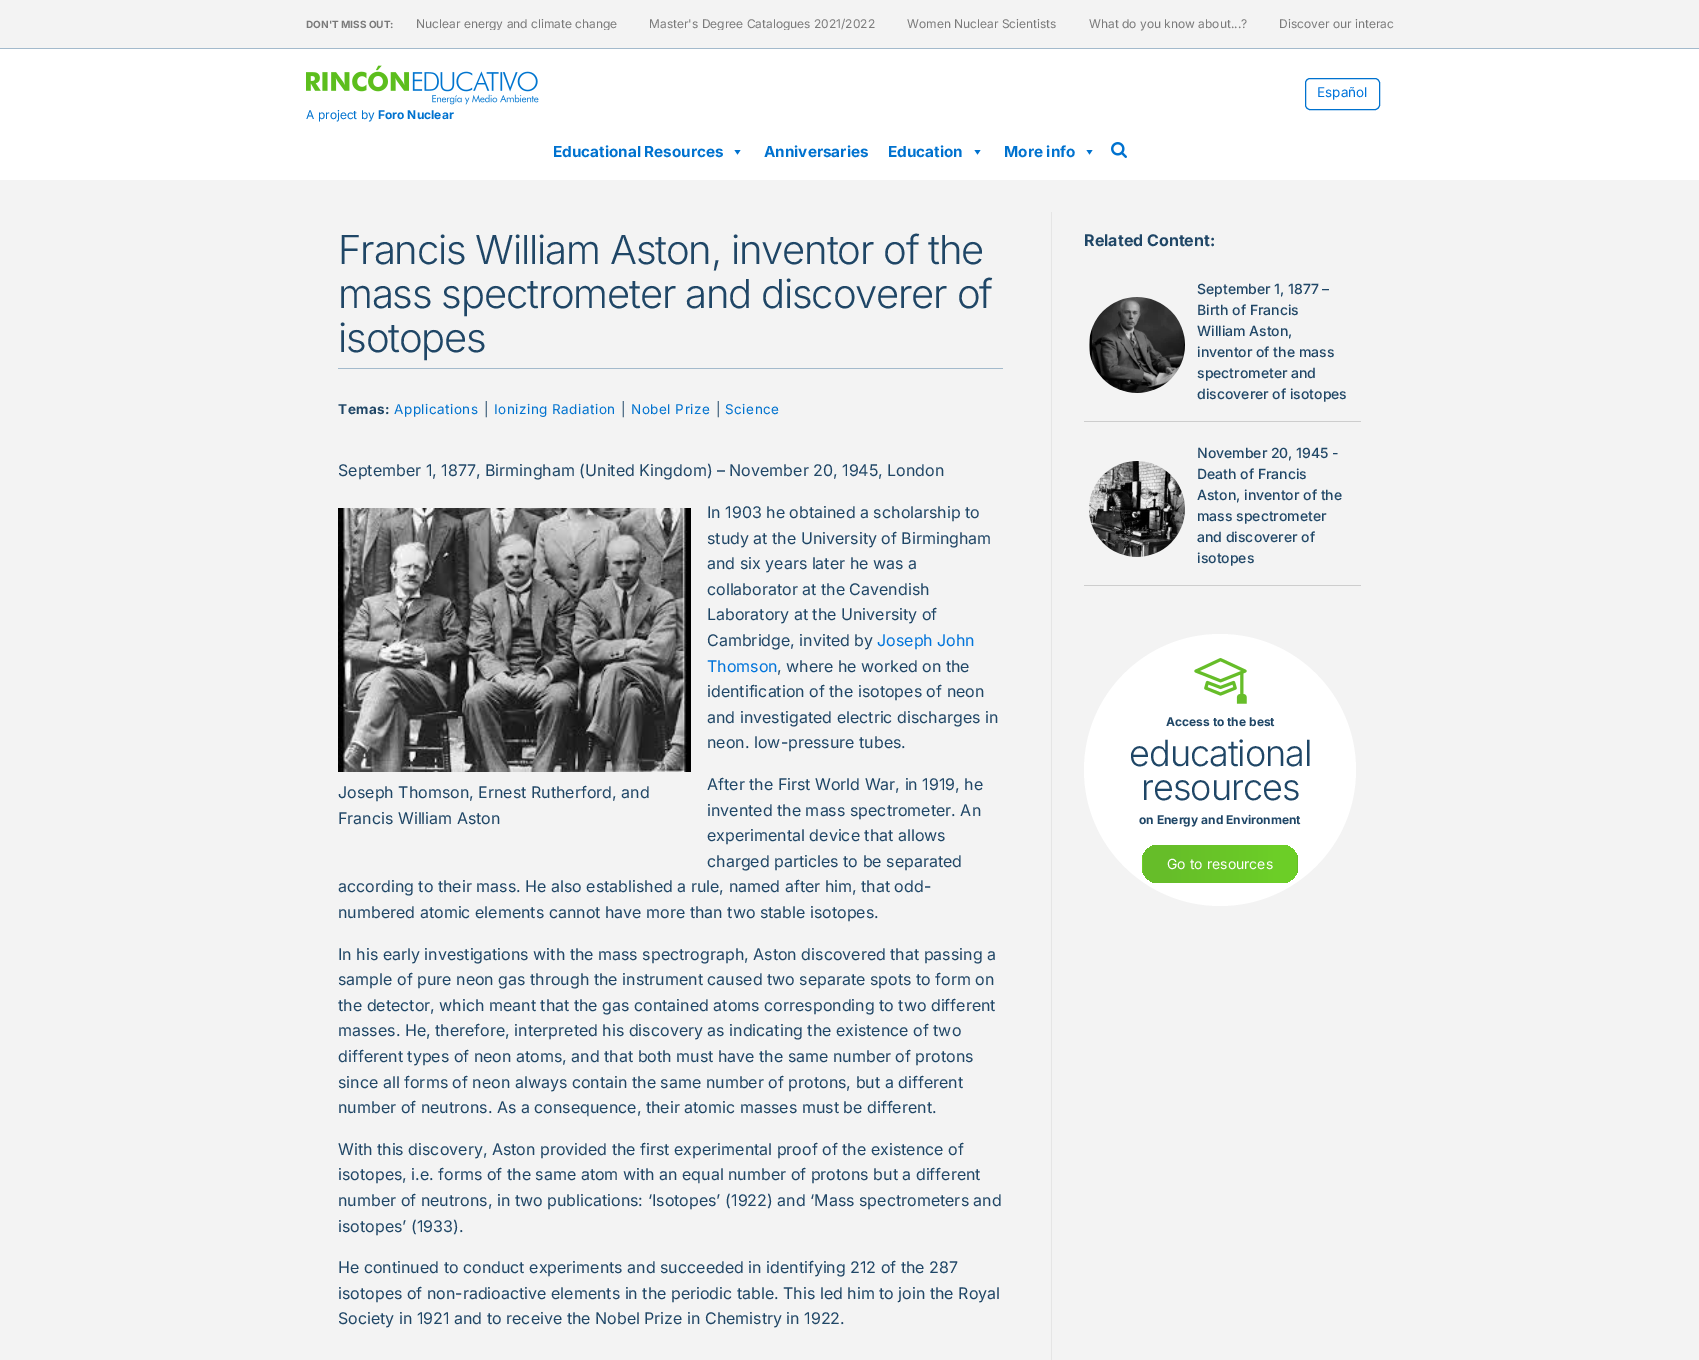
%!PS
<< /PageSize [1699 1360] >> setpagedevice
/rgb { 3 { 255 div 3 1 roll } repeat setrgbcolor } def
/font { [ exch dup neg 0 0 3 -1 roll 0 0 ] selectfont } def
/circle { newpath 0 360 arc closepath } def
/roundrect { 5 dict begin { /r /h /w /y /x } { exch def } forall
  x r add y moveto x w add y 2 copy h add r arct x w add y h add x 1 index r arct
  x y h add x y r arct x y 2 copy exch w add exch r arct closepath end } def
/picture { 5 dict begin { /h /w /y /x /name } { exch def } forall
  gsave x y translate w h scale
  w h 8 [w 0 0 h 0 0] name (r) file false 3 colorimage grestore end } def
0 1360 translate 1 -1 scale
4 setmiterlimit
243 243 243 rgb
0 0 1699 1360 rectfill
163 186 204 rgb
0 48 1699 1 rectfill
255 255 255 rgb
0 49 1699 131 rectfill
0 114 207 rgb
1305.5 78.5 74 31 4.5 roundrect stroke
(img/1.rgb) 306 65 233 40 picture
740.5 150 moveto 737.5 154.5 lineto 734.5 150 lineto closepath fill
980.5 150 moveto 977.5 154.5 lineto 974.5 150 lineto closepath fill
1092.5 150 moveto 1089.5 154.5 lineto 1086.5 150 lineto closepath fill
(img/2.rgb) 1111 142 16 16 picture
163 186 204 rgb
338 368 665 1 rectfill
(img/3.rgb) 338 508 353 264 picture
229 229 229 rgb
1051 212 1 1148 rectfill
205 205 205 rgb
1084 421 277 1 rectfill
(img/4.rgb) 1089 297 96 96 picture
1084 585 277 1 rectfill
(img/5.rgb) 1089 461 96 96 picture
255 255 255 rgb
1220 770 136 circle fill
(img/6.rgb) 1194 658 53 46 picture
gsave
1142 845 156 38 16 roundrect clip newpath
gsave 1142 855 moveto 1143 855 lineto 1143 873 lineto 1142 873 lineto closepath clip newpath
<< /ShadingType 2 /ColorSpace /DeviceRGB /Coords [989 864 1143 864] /Extend [true true] /Function << /FunctionType 3 /Domain [0 1] /Functions [<< /FunctionType 2 /Domain [0 1] /C0 [0.4 0.741 0.161] /C1 [0.4 0.741 0.161] /N 1 >> << /FunctionType 2 /Domain [0 1] /C0 [0.4 0.741 0.161] /C1 [0.424 0.808 0.153] /N 1 >> << /FunctionType 2 /Domain [0 1] /C0 [0.424 0.808 0.153] /C1 [0.424 0.808 0.153] /N 1 >>] /Bounds [0.14 0.86] /Encode [0 1 0 1 0 1] >> >> shfill grestore
gsave 1143 845 moveto 1297 845 lineto 1297 883 lineto 1143 883 lineto closepath clip newpath
<< /ShadingType 2 /ColorSpace /DeviceRGB /Coords [1143 864 1297 864] /Extend [true true] /Function << /FunctionType 3 /Domain [0 1] /Functions [<< /FunctionType 2 /Domain [0 1] /C0 [0.4 0.741 0.161] /C1 [0.4 0.741 0.161] /N 1 >> << /FunctionType 2 /Domain [0 1] /C0 [0.4 0.741 0.161] /C1 [0.424 0.808 0.153] /N 1 >> << /FunctionType 2 /Domain [0 1] /C0 [0.424 0.808 0.153] /C1 [0.424 0.808 0.153] /N 1 >>] /Bounds [0.14 0.86] /Encode [0 1 0 1 0 1] >> >> shfill grestore
gsave 1297 855 moveto 1298 855 lineto 1298 873 lineto 1297 873 lineto closepath clip newpath
<< /ShadingType 2 /ColorSpace /DeviceRGB /Coords [1297 864 1451 864] /Extend [true true] /Function << /FunctionType 3 /Domain [0 1] /Functions [<< /FunctionType 2 /Domain [0 1] /C0 [0.4 0.741 0.161] /C1 [0.4 0.741 0.161] /N 1 >> << /FunctionType 2 /Domain [0 1] /C0 [0.4 0.741 0.161] /C1 [0.424 0.808 0.153] /N 1 >> << /FunctionType 2 /Domain [0 1] /C0 [0.424 0.808 0.153] /C1 [0.424 0.808 0.153] /N 1 >>] /Bounds [0.14 0.86] /Encode [0 1 0 1 0 1] >> >> shfill grestore
grestore
/Inter-Bold 10 font
122 122 122 rgb
306 28 moveto (DON'T MISS OUT:) show
gsave
409 18 985 12 rectclip
/Inter-Regular 12 font
416 28 moveto (Nuclear energy and climate change) show
649 28 moveto (Master's Degree Catalogues 2021/2022) show
grestore
/Inter-Regular 12 font
[
  [(Women Nuclear Scientists) 907 28]
  [(What do you know about...?) 1089 28]
  [(Discover our interac) 1279 28]
] { aload pop moveto show } forall
/Inter-Regular 13.5 font
0 116 219 rgb
1317 97 moveto (Español) show
/Inter-Regular 12 font
0 114 207 rgb
306 119 moveto (A project by) show
/Inter-Bold 12 font
378 119 moveto (Foro Nuclear) show
/Inter-Bold 15.25 font
[
  [(Educational Resources) 553 157]
  [(Anniversaries) 764 157]
  [(Education) 888 157]
  [(More info) 1004 157]
] { aload pop moveto show } forall
/Inter-Light 40 font
31 70 102 rgb
338 264 moveto -1.2 0 (Francis William Aston, inventor of the) ashow
338 308 moveto -1.2 0 (mass spectrometer and discoverer of) ashow
338 352 moveto -1.2 0 (isotopes) ashow
/Inter-Bold 13.5 font
338 414 moveto 0.5 0 (Temas:) ashow
/Inter-Regular 13.5 font
0 114 207 rgb
394 414 moveto 0.5 0 (Applications) ashow
31 70 102 rgb
484 414 moveto 0.5 0 (|) ashow
0 114 207 rgb
494 414 moveto 0.5 0 (Ionizing Radiation) ashow
31 70 102 rgb
621 414 moveto 0.5 0 (|) ashow
0 114 207 rgb
631 414 moveto 0.5 0 (Nobel Prize) ashow
31 70 102 rgb
716 414 moveto 0.5 0 (|) ashow
0 114 207 rgb
725 414 moveto 0.5 0 (Science) ashow
/Inter-Regular 16 font
31 70 102 rgb
[
  [(September 1, 1877, Birmingham \(United Kingdom\) – November 20, 1945, London) 338 476]
  [(In 1903 he obtained a scholarship to) 707 518]
  [(study at the University of Birmingham) 707 544]
  [(and six years later he was a) 707 569]
  [(collaborator at the Cavendish) 707 595]
  [(Laboratory at the University of) 707 620]
  [(Cambridge, invited by) 707 646]
] { aload pop moveto show } forall
0 116 219 rgb
877 646 moveto (Joseph John) show
707 672 moveto (Thomson) show
31 70 102 rgb
[
  [(, where he worked on the) 777 672]
  [(identification of the isotopes of neon) 707 697]
  [(and investigated electric discharges in) 707 723]
  [(neon. low-pressure tubes.) 707 748]
  [(After the First World War, in 1919, he) 707 790]
  [(invented the mass spectrometer. An) 707 816]
  [(experimental device that allows) 707 841]
  [(charged particles to be separated) 707 867]
  [(according to their mass. He also established a rule, named after him, that odd-) 338 892]
  [(numbered atomic elements cannot have more than two stable isotopes.) 338 918]
  [(Joseph Thomson, Ernest Rutherford, and) 338 798]
  [(Francis William Aston) 338 824]
  [(In his early investigations with the mass spectrograph, Aston discovered that passing a) 338 960]
  [(sample of pure neon gas through the instrument caused two separate spots to form on) 338 985]
  [(the detector, which meant that the gas contained atoms corresponding to two different) 338 1011]
  [(masses. He, therefore, interpreted his discovery as indicating the existence of two) 338 1036]
  [(different types of neon atoms, and that both must have the same number of protons) 338 1062]
  [(since all forms of neon always contain the same number of protons, but a different) 338 1088]
  [(number of neutrons. As a consequence, their atomic masses must be different.) 338 1113]
  [(With this discovery, Aston provided the first experimental proof of the existence of) 338 1155]
  [(isotopes, i.e. forms of the same atom with an equal number of protons but a different) 338 1180]
  [(number of neutrons, in two publications: ‘Isotopes’ \(1922\) and ‘Mass spectrometers and) 338 1206]
  [(isotopes’ \(1933\).) 338 1232]
  [(He continued to conduct experiments and succeeded in identifying 212 of the 287) 338 1273]
  [(isotopes of non-radioactive elements in the periodic table. This led him to join the Royal) 338 1299]
  [(Society in 1921 and to receive the Nobel Prize in Chemistry in 1922.) 338 1324]
] { aload pop moveto show } forall
/Inter-Bold 16 font
1084 246 moveto (Related Content:) show
/Inter-Medium 14 font
[
  [(September 1, 1877 –) 1197 294]
  [(Birth of Francis) 1197 315]
  [(William Aston,) 1197 336]
  [(inventor of the mass) 1197 357]
  [(spectrometer and) 1197 378]
  [(discoverer of isotopes) 1197 399]
  [(November 20, 1945 -) 1197 458]
  [(Death of Francis) 1197 479]
  [(Aston, inventor of the) 1197 500]
  [(mass spectrometer) 1197 521]
  [(and discoverer of) 1197 542]
  [(isotopes) 1197 563]
] { aload pop moveto show } forall
/Inter-Bold 12 font
1166 726 moveto (Access to the best) show
/Inter-Light 36 font
1129 766 moveto -1 0 (educational) ashow
1141 800 moveto -1 0 (resources) ashow
/Inter-Bold 12 font
1139 824 moveto (on Energy and Environment) show
/Inter-Regular 14 font
255 255 255 rgb
1167 869 moveto (Go to resources) show
showpage
